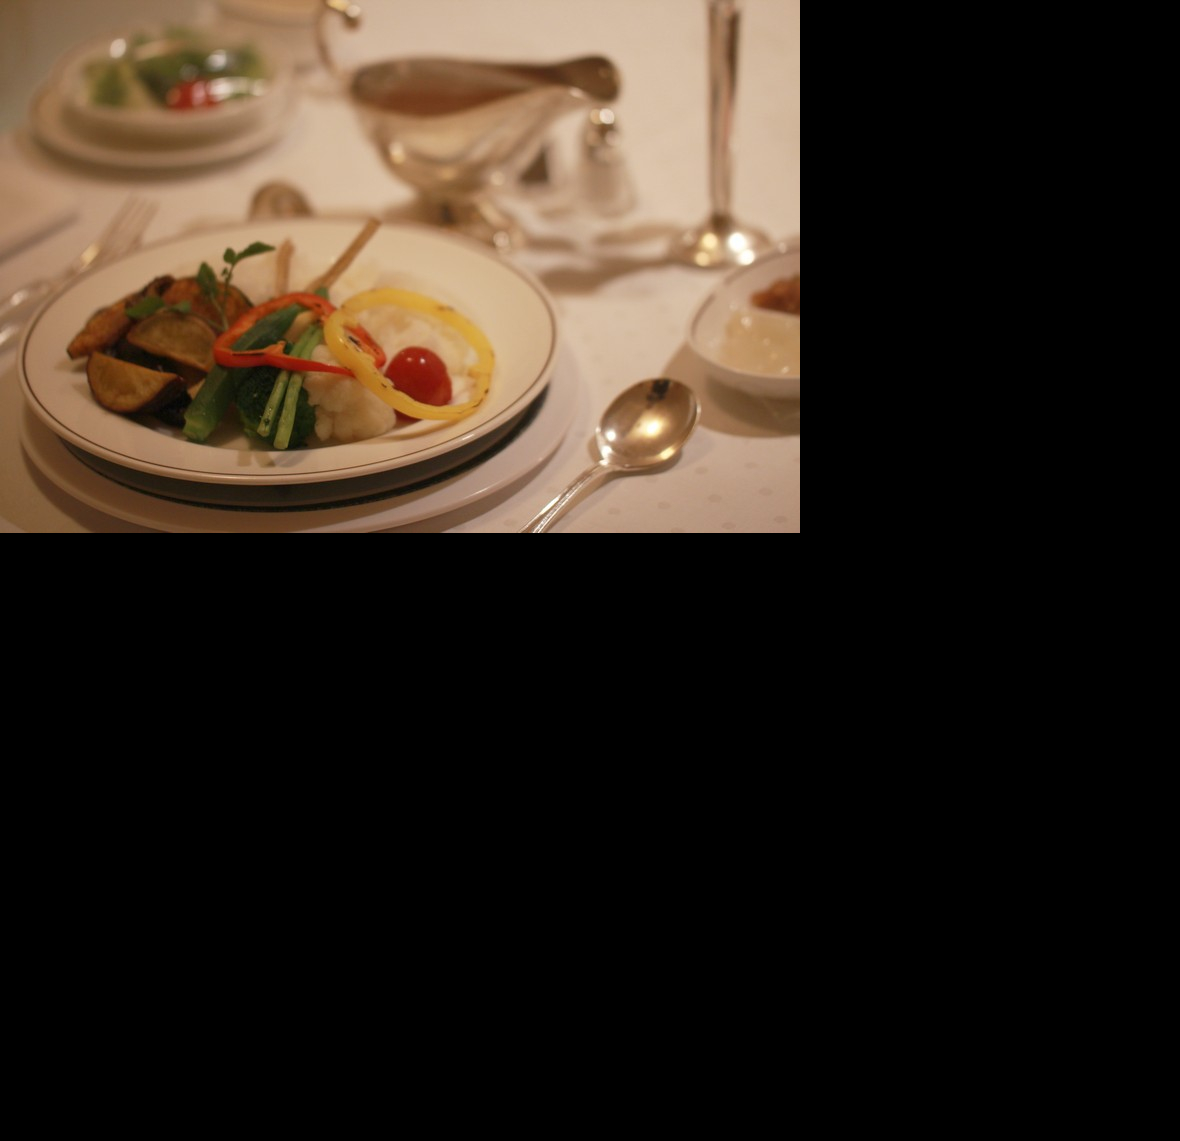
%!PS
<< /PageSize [1180 1141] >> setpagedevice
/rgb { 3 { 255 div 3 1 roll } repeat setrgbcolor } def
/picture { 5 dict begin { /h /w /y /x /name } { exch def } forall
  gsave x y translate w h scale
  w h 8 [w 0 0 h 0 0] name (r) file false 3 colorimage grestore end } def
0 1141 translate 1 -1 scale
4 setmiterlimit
0 0 0 rgb
0 0 1180 1141 rectfill
(img/1.rgb) 0 0 800 533 picture
showpage
